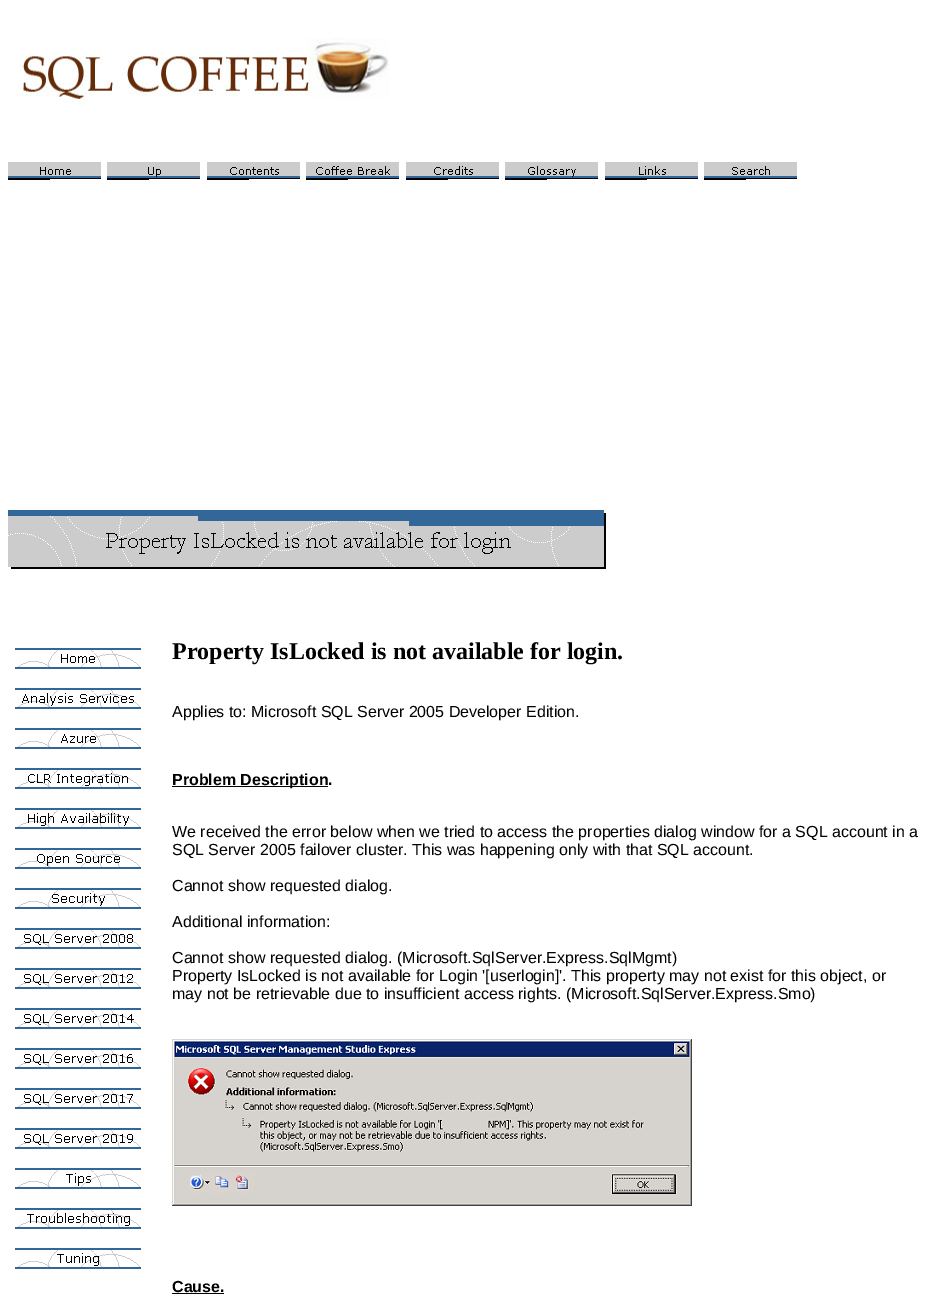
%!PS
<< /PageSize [928 1304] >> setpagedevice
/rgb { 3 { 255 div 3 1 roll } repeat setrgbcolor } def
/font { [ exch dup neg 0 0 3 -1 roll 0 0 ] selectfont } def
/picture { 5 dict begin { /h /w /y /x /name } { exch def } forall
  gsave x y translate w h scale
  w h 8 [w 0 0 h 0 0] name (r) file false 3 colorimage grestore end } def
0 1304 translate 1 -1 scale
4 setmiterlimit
255 255 255 rgb
0 0 928 1304 rectfill
(img/1.rgb) 16 38 373 67 picture
(img/2.rgb) 8 162 93 18 picture
(img/3.rgb) 107 162 93 18 picture
(img/4.rgb) 207 162 93 18 picture
(img/5.rgb) 306 162 93 18 picture
(img/6.rgb) 406 162 93 18 picture
(img/7.rgb) 505 162 93 18 picture
(img/8.rgb) 605 162 93 18 picture
(img/9.rgb) 704 162 93 18 picture
(img/10.rgb) 8 510 598 59 picture
(img/11.rgb) 15 648 126 21 picture
(img/12.rgb) 15 688 126 21 picture
(img/13.rgb) 15 728 126 21 picture
(img/14.rgb) 15 768 126 21 picture
(img/15.rgb) 15 808 126 21 picture
(img/16.rgb) 15 848 126 21 picture
(img/17.rgb) 15 888 126 21 picture
(img/18.rgb) 15 928 126 21 picture
(img/19.rgb) 15 968 126 21 picture
(img/20.rgb) 15 1008 126 21 picture
(img/21.rgb) 15 1048 126 21 picture
(img/22.rgb) 15 1088 126 21 picture
(img/23.rgb) 15 1128 126 21 picture
(img/24.rgb) 15 1168 126 21 picture
(img/25.rgb) 15 1208 126 21 picture
(img/26.rgb) 15 1248 126 21 picture
0 0 0 rgb
172 786 156 1 rectfill
(img/27.rgb) 172 1039 520 167 picture
172 1293 52 1 rectfill
/LiberationSerif-Bold 24 font
172 659 moveto (Property IsLocked is not available for login.) show
/LiberationSans-Regular 16 font
172 717 moveto (Applies to: Microsoft SQL Server 2005 Developer Edition.) show
/LiberationSans-Bold 16 font
172 785 moveto (Problem Description.) show
/LiberationSans-Regular 16 font
[
  [(We received the error below when we tried to access the properties dialog window for a SQL account in a) 172 837]
  [(SQL Server 2005 failover cluster. This was happening only with that SQL account.) 172 855]
  [(Cannot show requested dialog.) 172 891]
  [(Additional information:) 172 927]
  [(Cannot show requested dialog. \(Microsoft.SqlServer.Express.SqlMgmt\)) 172 963]
  [(Property IsLocked is not available for Login '[userlogin]'. This property may not exist for this object, or) 172 981]
  [(may not be retrievable due to insufficient access rights. \(Microsoft.SqlServer.Express.Smo\)) 172 999]
] { aload pop moveto show } forall
/LiberationSans-Bold 16 font
172 1292 moveto (Cause.) show
showpage
